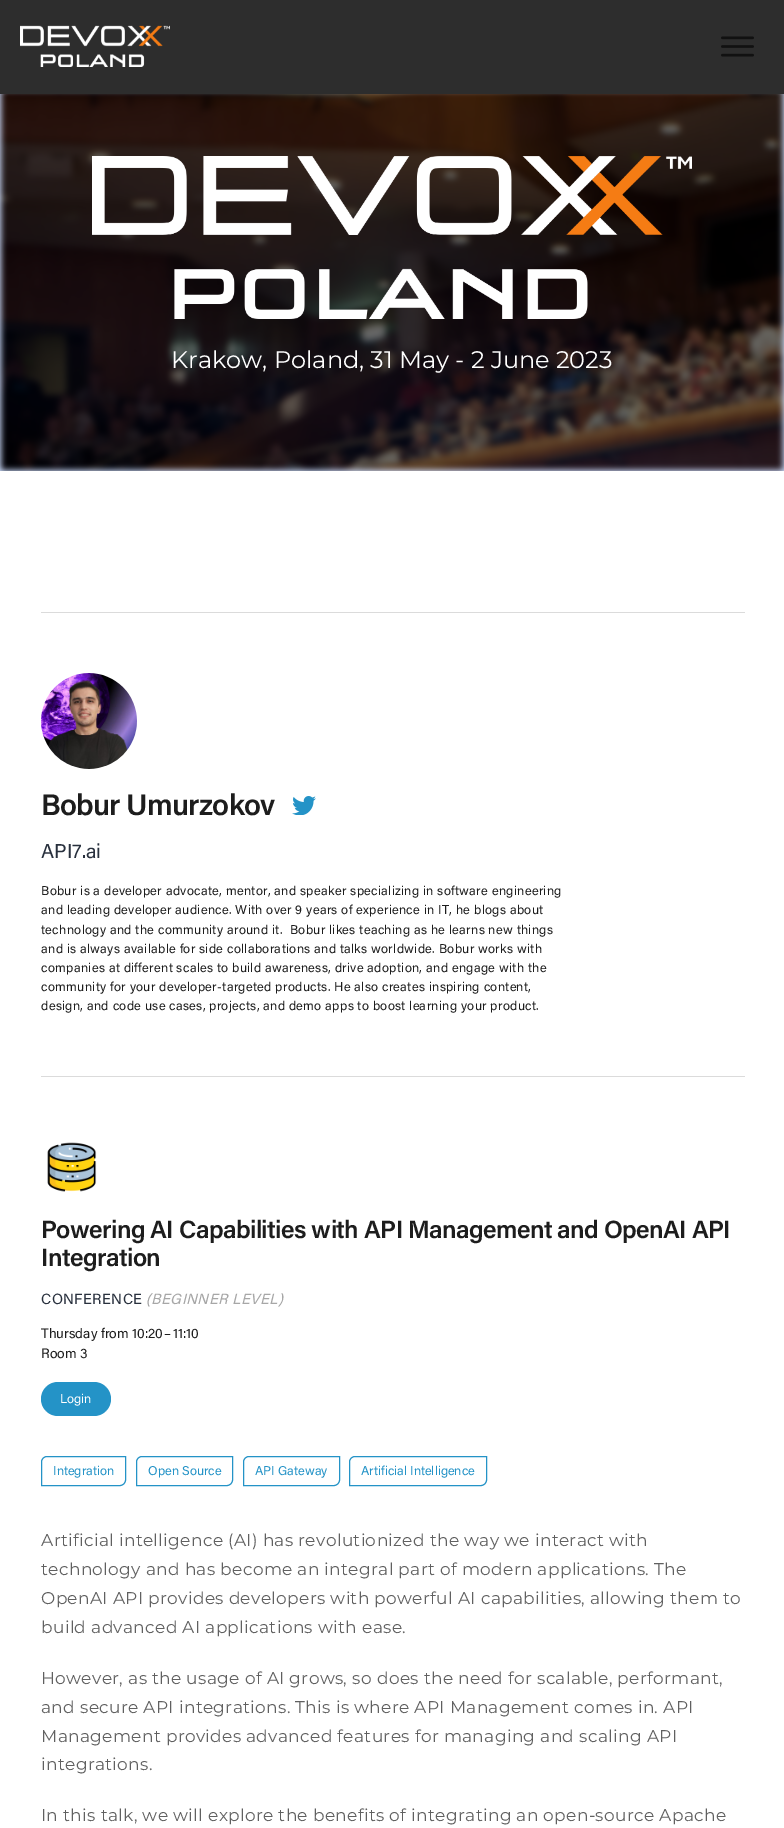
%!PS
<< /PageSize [784 1828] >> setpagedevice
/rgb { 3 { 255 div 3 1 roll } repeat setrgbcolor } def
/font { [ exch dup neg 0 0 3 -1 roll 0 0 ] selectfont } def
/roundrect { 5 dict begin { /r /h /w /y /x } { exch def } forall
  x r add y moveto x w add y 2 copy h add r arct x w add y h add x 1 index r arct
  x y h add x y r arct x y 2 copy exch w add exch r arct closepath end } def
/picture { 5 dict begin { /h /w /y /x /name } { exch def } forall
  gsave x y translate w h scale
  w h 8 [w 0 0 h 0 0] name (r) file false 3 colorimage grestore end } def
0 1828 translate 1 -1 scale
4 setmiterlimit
207 223 255 rgb
0 0 784 1828 rectfill
45 45 45 rgb
0 0 784 94 rectfill
(img/1.rgb) 20 25 150 42 picture
(img/2.rgb) 721 36 33 21 picture
(img/3.rgb) 0 94 784 377 picture
(img/4.rgb) 92 156 600 163 picture
255 255 255 rgb
0 471 784 1357 rectfill
219 219 219 rgb
41 612 704 1 rectfill
(img/5.rgb) 41 673 96 96 picture
(img/6.rgb) 292 796 24 19 picture
41 1076 704 1 rectfill
(img/7.rgb) 47 1142 50 50 picture
36 147 199 rgb
41 1382 70 34 17 roundrect fill
47 1456.5 moveto 125.5 1456.5 lineto 125.5 1480 lineto 125.5 1483 123 1485.5 120 1485.5 curveto 41.5 1485.5 lineto 41.5 1462 lineto 41.5 1459 44 1456.5 47 1456.5 curveto closepath stroke
142 1456.5 moveto 232.5 1456.5 lineto 232.5 1480 lineto 232.5 1483 230 1485.5 227 1485.5 curveto 136.5 1485.5 lineto 136.5 1462 lineto 136.5 1459 139 1456.5 142 1456.5 curveto closepath stroke
249 1456.5 moveto 339.5 1456.5 lineto 339.5 1480 lineto 339.5 1483 337 1485.5 334 1485.5 curveto 243.5 1485.5 lineto 243.5 1462 lineto 243.5 1459 246 1456.5 249 1456.5 curveto closepath stroke
355 1456.5 moveto 486.5 1456.5 lineto 486.5 1480 lineto 486.5 1483 484 1485.5 481 1485.5 curveto 349.5 1485.5 lineto 349.5 1462 lineto 349.5 1459 352 1456.5 355 1456.5 curveto closepath stroke
/Montserrat-Regular 24 font
255 255 255 rgb
171 368 moveto (Krakow, Poland, 31 May - 2 June 2023) show
/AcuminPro-SemiBold 29.75 font
29 29 29 rgb
41 815 moveto -0.75 0 (Bobur Umurzokov) ashow
/AcuminPro-Regular 20 font
40 48 61 rgb
41 858 moveto (API7.ai) show
/AcuminPro-Regular 12.75 font
29 29 29 rgb
41 895 moveto 0.32 0 (Bobur is a developer advocate, mentor, and speaker specializing in software engineering) ashow
41 914 moveto 0.32 0 (and leading developer audience. With over 9 years of experience in IT, he blogs about) ashow
41 934 moveto 0.32 0 (technology and the community around it.  Bobur likes teaching as he learns new things) ashow
41 953 moveto 0.32 0 (and is always available for side collaborations and talks worldwide. Bobur works with) ashow
41 972 moveto 0.32 0 (companies at different scales to build awareness, drive adoption, and engage with the) ashow
41 991 moveto 0.32 0 (community for your developer-targeted products. He also creates inspiring content,) ashow
41 1010 moveto 0.32 0 (design, and code use cases, projects, and demo apps to boost learning your product.) ashow
/AcuminPro-SemiBold 24.9 font
41 1238 moveto -0.62 0 (Powering AI Capabilities with API Management and OpenAI API) ashow
41 1266 moveto -0.62 0 (Integration) ashow
/AcuminPro-Regular 14.75 font
40 48 61 rgb
41 1304 moveto 0.4 0 (CONFERENCE) ashow
/AcuminPro-Italic 14.75 font
167 167 167 rgb
146 1304 moveto 0.4 0 (\(BEGINNER LEVEL\)) ashow
/AcuminPro-Regular 13.75 font
29 29 29 rgb
[
  [(Thursday from 10:20) 41 1338]
  [(–) 164 1338]
  [(11:10) 173 1338]
  [(Room 3) 41 1358]
] { aload pop moveto show } forall
/AcuminPro-Regular 12.75 font
255 255 255 rgb
60 1403 moveto (Login) show
36 147 199 rgb
[
  [(Integration) 53 1475]
  [(Open Source) 148 1475]
  [(API Gateway) 255 1475]
  [(Artificial Intelligence) 361 1475]
] { aload pop moveto show } forall
/Montserrat-Regular 17 font
96 96 96 rgb
41 1546 moveto 0.35 0 (Artificial intelligence \(AI\) has revolutionized the way we interact with) ashow
41 1575 moveto 0.35 0 (technology and has become an integral part of modern applications. The) ashow
41 1604 moveto 0.35 0 (OpenAI API provides developers with powerful AI capabilities, allowing them to) ashow
41 1633 moveto 0.35 0 (build advanced AI applications with ease.) ashow
41 1684 moveto 0.35 0 (However, as the usage of AI grows, so does the need for scalable, performant,) ashow
41 1713 moveto 0.35 0 (and secure API integrations. This is where API Management comes in. API) ashow
41 1742 moveto 0.35 0 (Management provides advanced features for managing and scaling API) ashow
41 1770 moveto 0.35 0 (integrations.) ashow
41 1821 moveto 0.35 0 (In this talk, we will explore the benefits of integrating an open-source Apache) ashow
showpage
